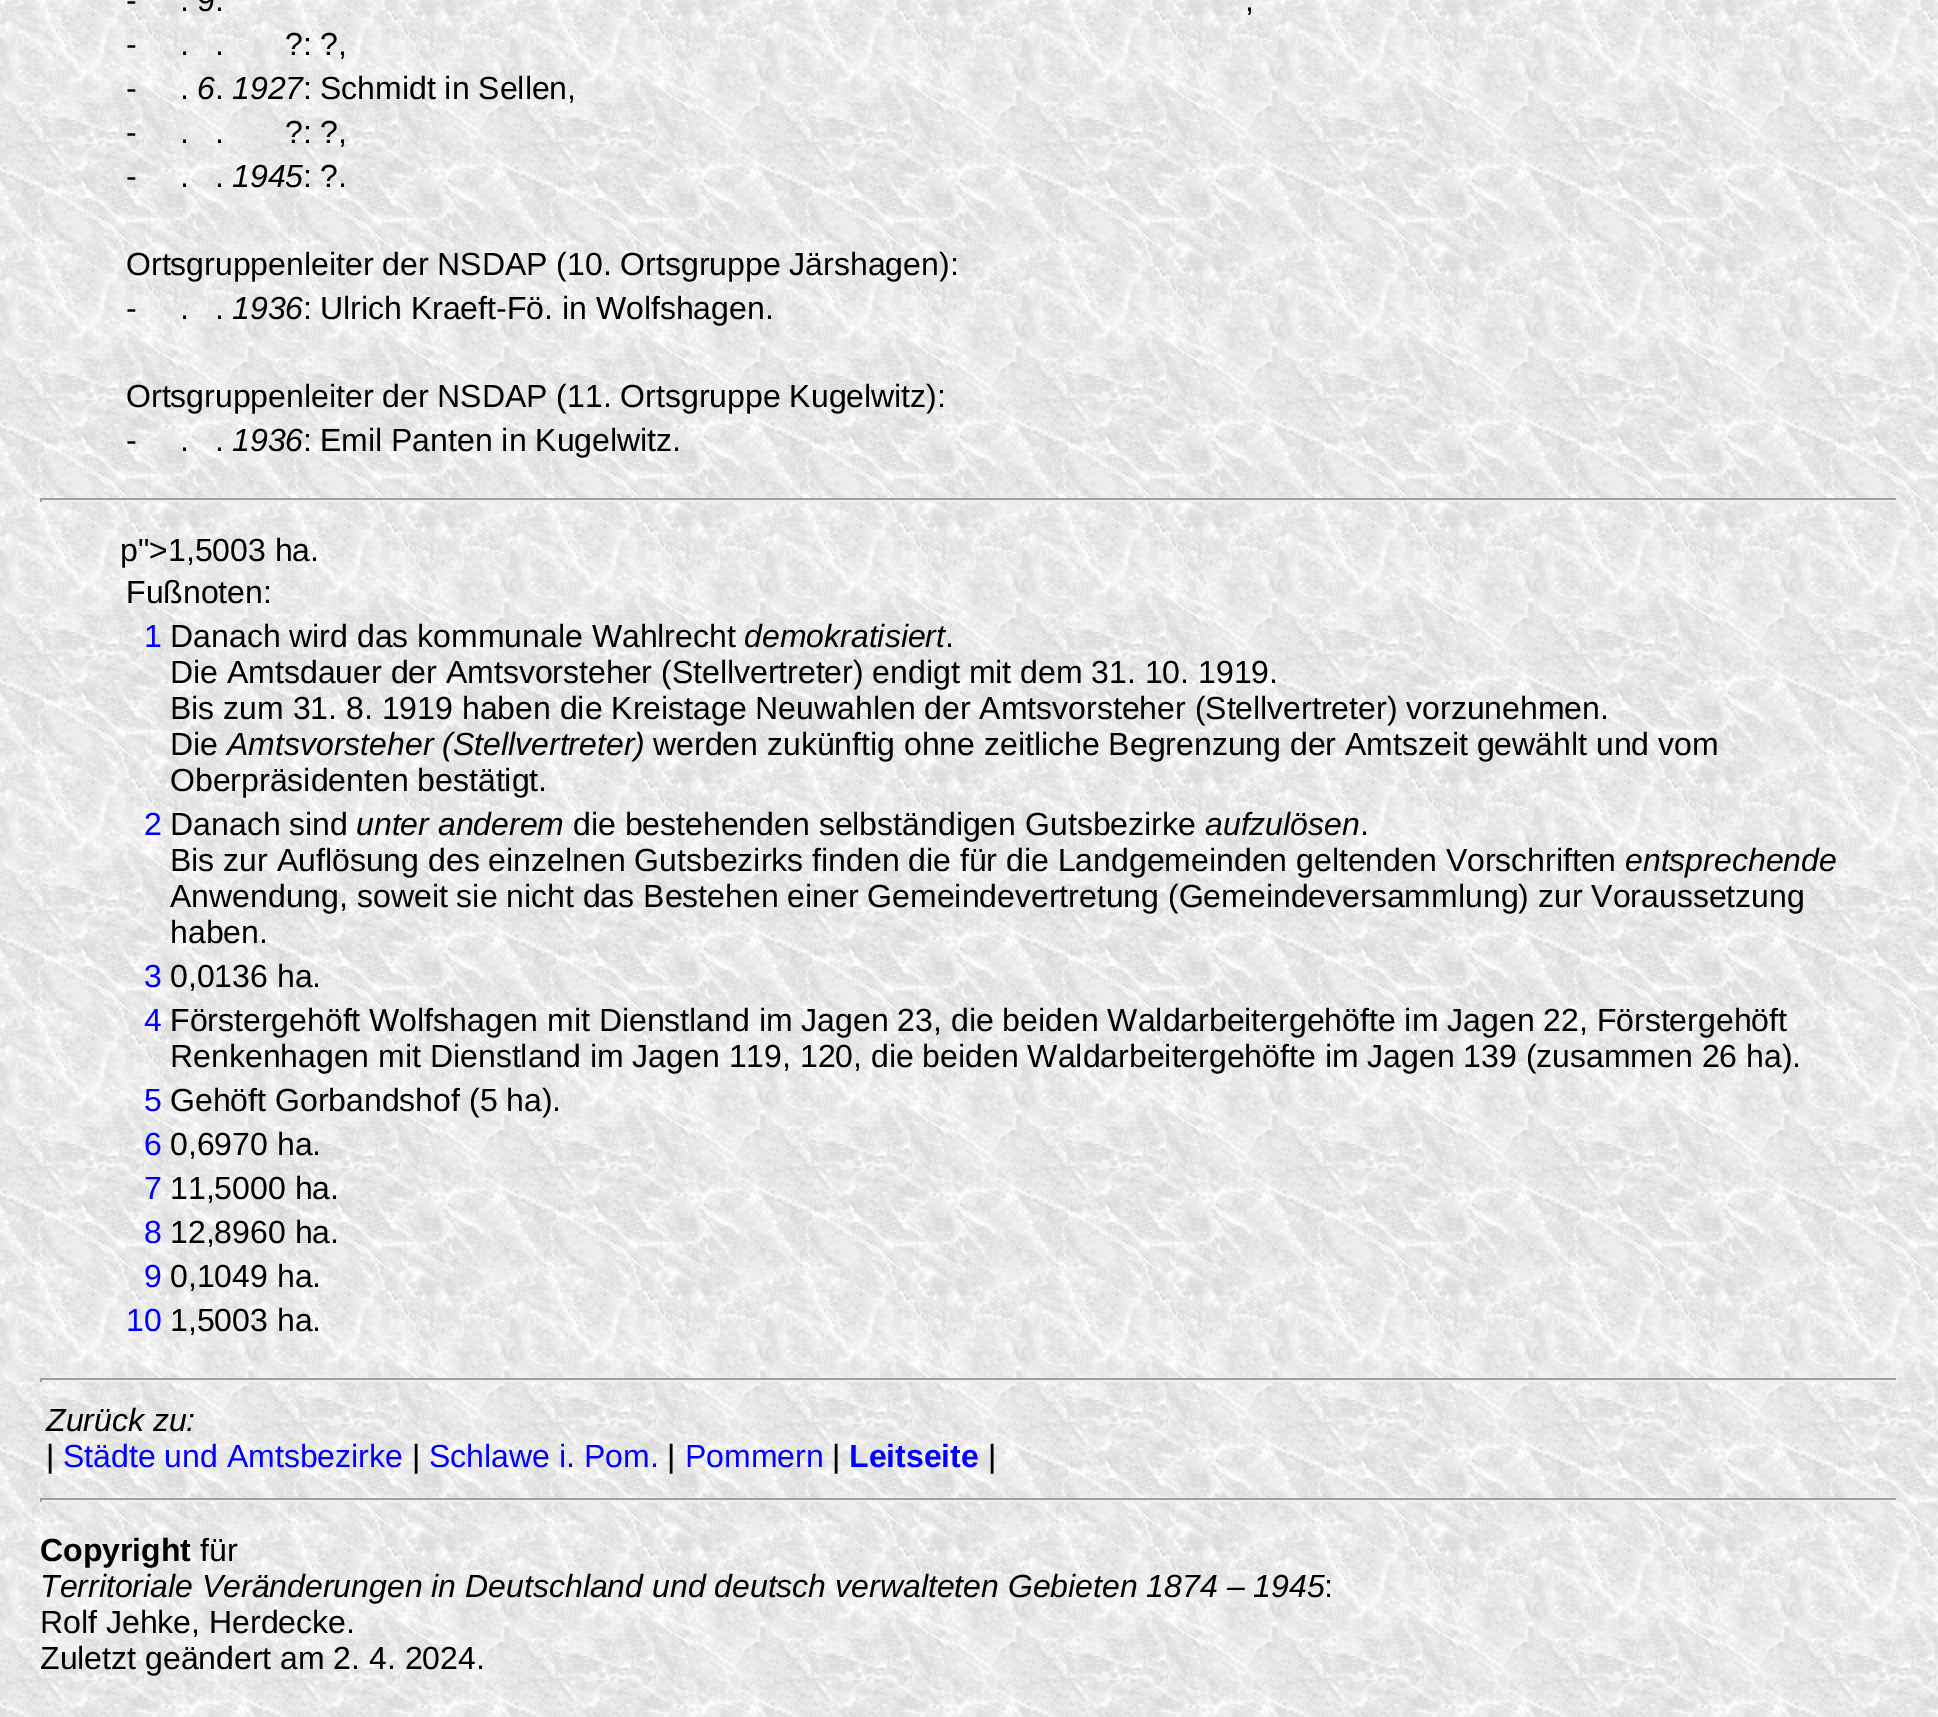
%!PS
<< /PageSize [1938 1717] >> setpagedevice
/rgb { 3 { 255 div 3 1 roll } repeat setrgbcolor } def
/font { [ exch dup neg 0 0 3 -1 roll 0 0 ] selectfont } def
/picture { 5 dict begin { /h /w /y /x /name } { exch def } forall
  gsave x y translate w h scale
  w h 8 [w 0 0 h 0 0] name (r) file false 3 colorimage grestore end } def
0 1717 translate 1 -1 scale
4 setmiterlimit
255 255 255 rgb
0 0 1938 1717 rectfill
(img/1.rgb) 0 0 1938 1717 picture
[
  [40 498 1858 2 159 159 159]
  [1896 498 2 4 238 238 238]
  [40 500 1858 2 238 238 238]
  [40 498 2 4 159 159 159]
  [40 1378 1858 2 159 159 159]
  [1896 1378 2 4 238 238 238]
  [40 1380 1848 2 238 238 238]
  [40 1378 2 4 159 159 159]
  [40 1498 1858 2 159 159 159]
  [1896 1498 2 4 238 238 238]
  [40 1500 1858 2 238 238 238]
  [40 1498 2 4 159 159 159]
] { aload pop rgb rectfill } forall
/LiberationSans-Regular 32 font
0 0 0 rgb
[
  [(-) 126 11]
  [(9.) 197 11]
  [(.) 180 11]
  [(,) 1245 11]
  [(-) 126 55]
  [(?:) 285 55]
  [(?,) 320 55]
  [(.) 180 55]
  [(.) 215 55]
  [(-) 126 99]
] { aload pop moveto show } forall
/LiberationSans-Italic 32 font
197 99 moveto (6) show
/LiberationSans-Regular 32 font
215 99 moveto (.) show
/LiberationSans-Italic 32 font
232 99 moveto (1927) show
/LiberationSans-Regular 32 font
[
  [(:) 303 99]
  [(Schmidt in Sellen,) 320 99]
  [(.) 180 99]
  [(-) 126 143]
  [(?:) 285 143]
  [(?,) 320 143]
  [(.) 180 143]
  [(.) 215 143]
  [(-) 126 187]
] { aload pop moveto show } forall
/LiberationSans-Italic 32 font
232 187 moveto (1945) show
/LiberationSans-Regular 32 font
[
  [(:) 303 187]
  [(?.) 320 187]
  [(.) 180 187]
  [(.) 215 187]
  [(Ortsgruppenleiter der NSDAP \(10. Ortsgruppe Järshagen\):) 126 275]
  [(-) 126 319]
] { aload pop moveto show } forall
/LiberationSans-Italic 32 font
232 319 moveto (1936) show
/LiberationSans-Regular 32 font
[
  [(:) 303 319]
  [(Ulrich Kraeft-Fö. in Wolfshagen.) 320 319]
  [(.) 180 319]
  [(.) 215 319]
  [(Ortsgruppenleiter der NSDAP \(11. Ortsgruppe Kugelwitz\):) 126 407]
  [(-) 126 451]
] { aload pop moveto show } forall
/LiberationSans-Italic 32 font
232 451 moveto (1936) show
/LiberationSans-Regular 32 font
[
  [(:) 303 451]
  [(Emil Panten in Kugelwitz.) 320 451]
  [(.) 180 451]
  [(.) 215 451]
  [(p">1,5003 ha.) 120 561]
  [(Fußnoten:) 126 603]
] { aload pop moveto show } forall
0 0 255 rgb
144 647 moveto (1) show
0 0 0 rgb
170 647 moveto (Danach wird das kommunale Wahlrecht) show
/LiberationSans-Italic 32 font
744 647 moveto (demokratisiert) show
/LiberationSans-Regular 32 font
[
  [(.) 945 647]
  [(Die Amtsdauer der Amtsvorsteher \(Stellvertreter\) endigt mit dem 31. 10. 1919.) 170 683]
  [(Bis zum 31. 8. 1919 haben die Kreistage Neuwahlen der Amtsvorsteher \(Stellvertreter\) vorzunehmen.) 170 719]
  [(Die) 170 755]
] { aload pop moveto show } forall
/LiberationSans-Italic 32 font
227 755 moveto (Amtsvorsteher \(Stellvertreter\)) show
/LiberationSans-Regular 32 font
653 755 moveto (werden zukünftig ohne zeitliche Begrenzung der Amtszeit gewählt und vom) show
170 791 moveto (Oberpräsidenten bestätigt.) show
0 0 255 rgb
144 835 moveto (2) show
0 0 0 rgb
170 835 moveto (Danach sind) show
/LiberationSans-Italic 32 font
356 835 moveto (unter anderem) show
/LiberationSans-Regular 32 font
573 835 moveto (die bestehenden selbständigen Gutsbezirke) show
/LiberationSans-Italic 32 font
1205 835 moveto (aufzulösen) show
/LiberationSans-Regular 32 font
1360 835 moveto (.) show
170 871 moveto (Bis zur Auflösung des einzelnen Gutsbezirks finden die für die Landgemeinden geltenden Vorschriften) show
/LiberationSans-Italic 32 font
1625 871 moveto (entsprechende) show
/LiberationSans-Regular 32 font
170 907 moveto (Anwendung, soweit sie nicht das Bestehen einer Gemeindevertretung \(Gemeindeversammlung\) zur Voraussetzung) show
170 943 moveto (haben.) show
0 0 255 rgb
144 987 moveto (3) show
0 0 0 rgb
170 987 moveto (0,0136 ha.) show
0 0 255 rgb
144 1031 moveto (4) show
0 0 0 rgb
170 1031 moveto (Förstergehöft Wolfshagen mit Dienstland im Jagen 23, die beiden Waldarbeitergehöfte im Jagen 22, Förstergehöft) show
170 1067 moveto (Renkenhagen mit Dienstland im Jagen 119, 120, die beiden Waldarbeitergehöfte im Jagen 139 \(zusammen 26 ha\).) show
0 0 255 rgb
144 1111 moveto (5) show
0 0 0 rgb
170 1111 moveto (Gehöft Gorbandshof \(5 ha\).) show
0 0 255 rgb
144 1155 moveto (6) show
0 0 0 rgb
170 1155 moveto (0,6970 ha.) show
0 0 255 rgb
144 1199 moveto (7) show
0 0 0 rgb
170 1199 moveto (11,5000 ha.) show
0 0 255 rgb
144 1243 moveto (8) show
0 0 0 rgb
170 1243 moveto (12,8960 ha.) show
0 0 255 rgb
144 1287 moveto (9) show
0 0 0 rgb
170 1287 moveto (0,1049 ha.) show
0 0 255 rgb
126 1331 moveto (10) show
0 0 0 rgb
170 1331 moveto (1,5003 ha.) show
/LiberationSans-Italic 32 font
46 1431 moveto (Zurück zu:) show
/LiberationSans-Regular 32 font
46 1467 moveto (|) show
0 0 255 rgb
63 1467 moveto (Städte und Amtsbezirke) show
0 0 0 rgb
412 1467 moveto (|) show
0 0 255 rgb
429 1467 moveto (Schlawe i. Pom.) show
0 0 0 rgb
667 1467 moveto (|) show
0 0 255 rgb
685 1467 moveto (Pommern) show
0 0 0 rgb
832 1467 moveto (|) show
/LiberationSans-Bold 32 font
0 0 255 rgb
849 1467 moveto (Leitseite) show
/LiberationSans-Regular 32 font
0 0 0 rgb
988 1467 moveto (|) show
/LiberationSans-Bold 32 font
40 1561 moveto (Copyright) show
/LiberationSans-Regular 32 font
200 1561 moveto (für) show
/LiberationSans-Italic 32 font
40 1597 moveto (Territoriale Veränderungen in Deutschland und deutsch verwalteten Gebieten 1874 – 1945) show
/LiberationSans-Regular 32 font
[
  [(:) 1324 1597]
  [(Rolf Jehke, Herdecke.) 40 1633]
  [(Zuletzt geändert am 2. 4. 2024.) 40 1669]
] { aload pop moveto show } forall
showpage
